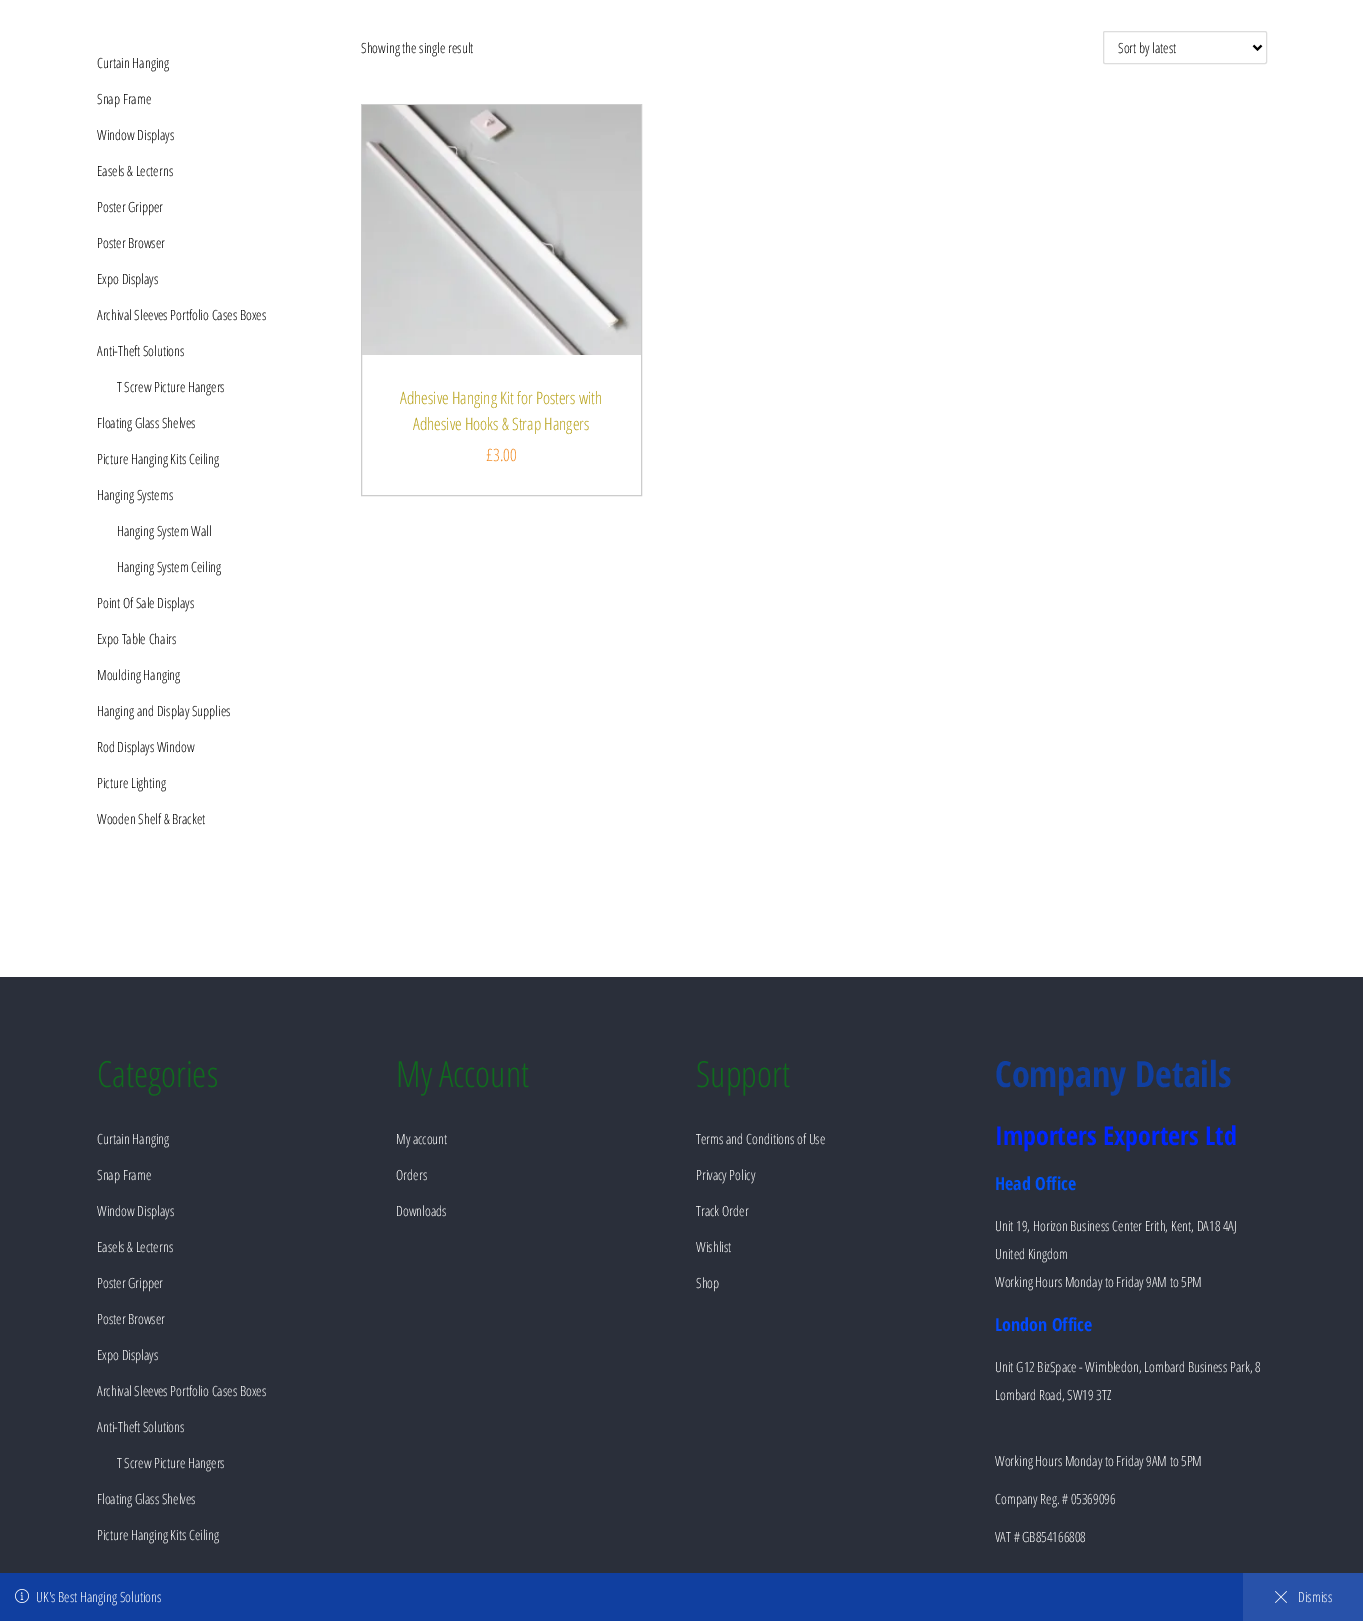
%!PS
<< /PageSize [1363 1621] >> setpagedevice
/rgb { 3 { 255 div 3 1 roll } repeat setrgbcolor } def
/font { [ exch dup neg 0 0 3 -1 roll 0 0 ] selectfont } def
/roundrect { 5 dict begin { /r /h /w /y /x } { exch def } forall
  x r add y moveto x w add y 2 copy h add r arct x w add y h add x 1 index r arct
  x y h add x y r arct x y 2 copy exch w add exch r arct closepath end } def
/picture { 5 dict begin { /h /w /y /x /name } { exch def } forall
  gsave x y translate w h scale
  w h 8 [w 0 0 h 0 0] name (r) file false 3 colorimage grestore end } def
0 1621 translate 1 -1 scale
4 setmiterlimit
255 255 255 rgb
0 0 1363 1621 rectfill
221 221 221 rgb
1103.5 31.5 163 32 1.5 roundrect stroke
0 0 0 rgb
2 setlinewidth
1253.5 45.5 moveto 1257.5 49.5 lineto 1261.5 45.5 lineto stroke
204 204 204 rgb
1 setlinewidth
361.5 104.5 280 391 rectstroke
(img/1.rgb) 362 105 279 250 picture
42 47 58 rgb
0 977 1363 596 rectfill
16 63 160 rgb
0 1573 1243 48 rectfill
(img/2.rgb) 15 1589 14 14 picture
40 82 170 rgb
1243 1573 120 48 rectfill
(img/3.rgb) 1275 1591 12 12 picture
/OpenSansCondensed-Light 14 font
0 0 0 rgb
[
  [(Curtain Hanging) 97 68]
  [(Snap Frame) 97 104]
  [(Window Displays) 97 140]
  [(Easels & Lecterns) 97 176]
  [(Poster Gripper) 97 212]
  [(Poster Browser) 97 248]
  [(Expo Displays) 97 284]
  [(Archival Sleeves Portfolio Cases Boxes) 97 320]
  [(Anti-Theft Solutions) 97 356]
  [(T Screw Picture Hangers) 117 392]
  [(Floating Glass Shelves) 97 428]
  [(Picture Hanging Kits Ceiling) 97 464]
  [(Hanging Systems) 97 500]
  [(Hanging System Wall) 117 536]
  [(Hanging System Ceiling) 117 572]
  [(Point Of Sale Displays) 97 608]
  [(Expo Table Chairs) 97 644]
  [(Moulding Hanging) 97 680]
  [(Hanging and Display Supplies) 97 716]
  [(Rod Displays Window) 97 752]
  [(Picture Lighting) 97 788]
  [(Wooden Shelf & Bracket) 97 824]
  [(Showing the single result) 361 53]
  [(Sort by latest) 1118 53]
] { aload pop moveto show } forall
/OpenSansCondensed-Light 17 font
184 162 25 rgb
400 404 moveto (Adhesive Hanging Kit for Posters with) show
413 430 moveto (Adhesive Hooks & Strap Hangers) show
242 143 42 rgb
486 461 moveto (£3.00) show
/OpenSansCondensed-Light 36 font
16 106 30 rgb
97 1087 moveto (Categories) show
/OpenSansCondensed-Light 14 font
255 255 255 rgb
[
  [(Curtain Hanging) 97 1144]
  [(Snap Frame) 97 1180]
  [(Window Displays) 97 1216]
  [(Easels & Lecterns) 97 1252]
  [(Poster Gripper) 97 1288]
  [(Poster Browser) 97 1324]
  [(Expo Displays) 97 1360]
  [(Archival Sleeves Portfolio Cases Boxes) 97 1396]
  [(Anti-Theft Solutions) 97 1432]
  [(T Screw Picture Hangers) 117 1468]
  [(Floating Glass Shelves) 97 1504]
  [(Picture Hanging Kits Ceiling) 97 1540]
] { aload pop moveto show } forall
/OpenSansCondensed-Light 36 font
16 106 30 rgb
396 1087 moveto (My Account) show
/OpenSansCondensed-Light 14 font
255 255 255 rgb
[
  [(My account) 396 1144]
  [(Orders) 396 1180]
  [(Downloads) 396 1216]
] { aload pop moveto show } forall
/OpenSansCondensed-Light 36 font
16 106 30 rgb
696 1087 moveto (Support) show
/OpenSansCondensed-Light 14 font
255 255 255 rgb
[
  [(Terms and Conditions of Use) 696 1144]
  [(Privacy Policy) 696 1180]
  [(Track Order) 696 1216]
  [(Wishlist) 696 1252]
  [(Shop) 696 1288]
] { aload pop moveto show } forall
/OpenSansCondensed-Bold 36 font
16 63 160 rgb
995 1087 moveto (Company Details) show
/OpenSansCondensed-Bold 26 font
0 38 255 rgb
995 1145 moveto (Importers Exporters Ltd) show
/OpenSansCondensed-Bold 18 font
0 82 247 rgb
995 1190 moveto (Head Office) show
/OpenSansCondensed-Light 14 font
255 255 255 rgb
[
  [(Unit 19, Horizon Business Center Erith, Kent, DA18 4AJ) 995 1231]
  [(United Kingdom) 995 1259]
  [(Working Hours Monday to Friday 9AM to 5PM) 995 1287]
] { aload pop moveto show } forall
/OpenSansCondensed-Bold 18 font
2 74 255 rgb
995 1331 moveto (London Office) show
/OpenSansCondensed-Light 14 font
255 255 255 rgb
[
  [(Unit G12 BizSpace - Wimbledon, Lombard Business Park, 8) 995 1372]
  [(Lombard Road, SW19 3TZ) 995 1400]
  [(Working Hours Monday to Friday 9AM to 5PM) 995 1466]
  [(Company Reg. # 05369096) 995 1504]
  [(VAT # GB854166808) 995 1542]
  [(UK's Best Hanging Solutions) 36 1602]
  [(Dismiss) 1298 1602]
] { aload pop moveto show } forall
showpage
